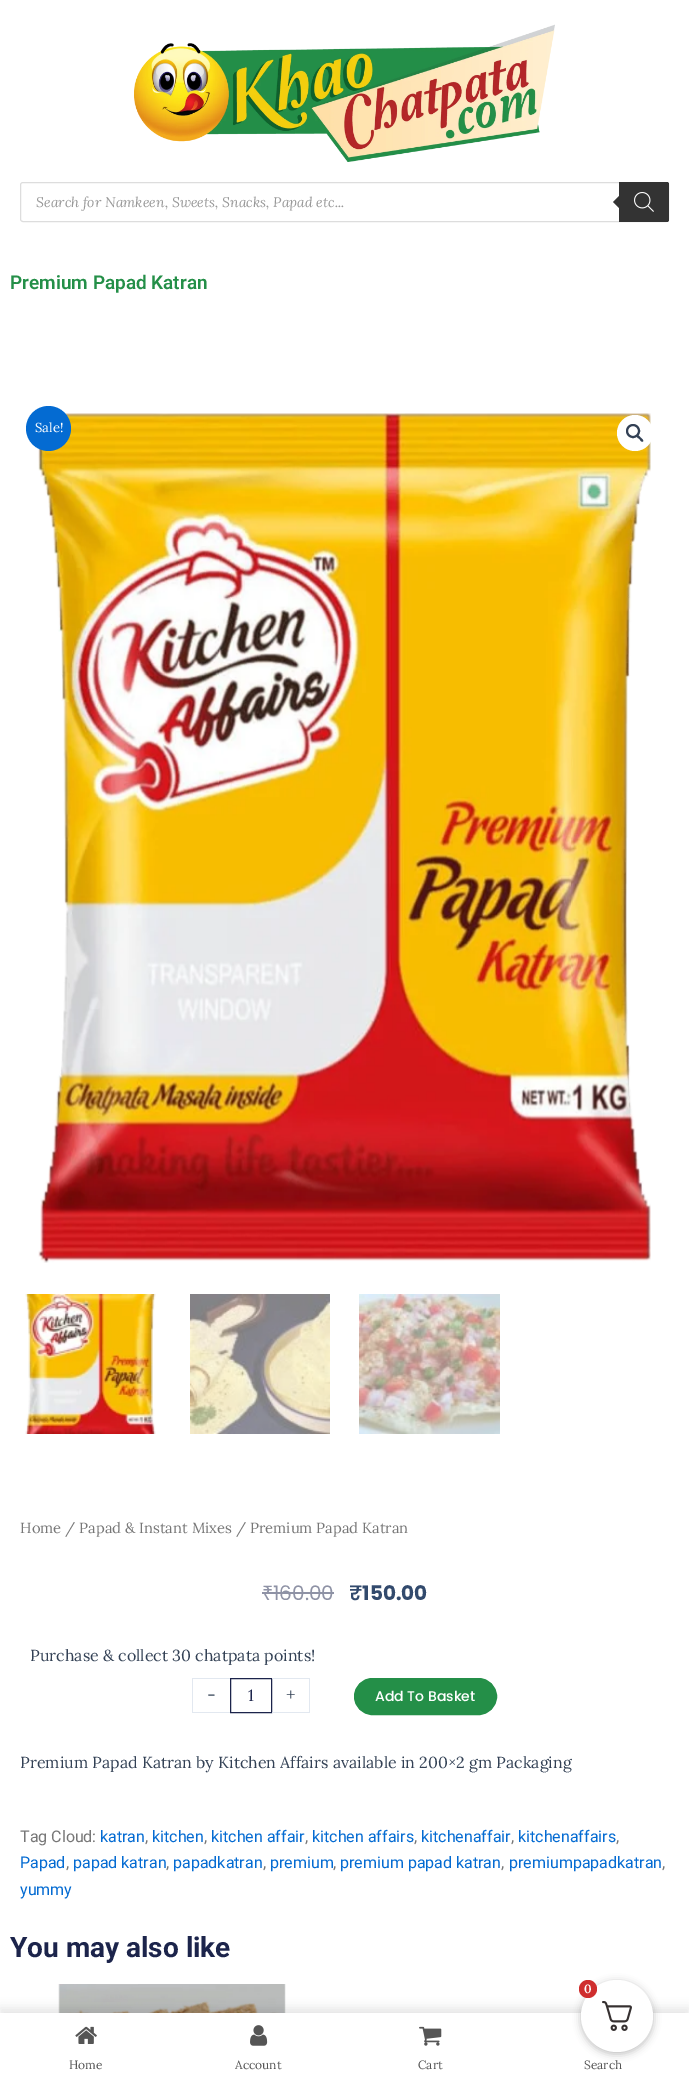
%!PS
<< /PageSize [689 2088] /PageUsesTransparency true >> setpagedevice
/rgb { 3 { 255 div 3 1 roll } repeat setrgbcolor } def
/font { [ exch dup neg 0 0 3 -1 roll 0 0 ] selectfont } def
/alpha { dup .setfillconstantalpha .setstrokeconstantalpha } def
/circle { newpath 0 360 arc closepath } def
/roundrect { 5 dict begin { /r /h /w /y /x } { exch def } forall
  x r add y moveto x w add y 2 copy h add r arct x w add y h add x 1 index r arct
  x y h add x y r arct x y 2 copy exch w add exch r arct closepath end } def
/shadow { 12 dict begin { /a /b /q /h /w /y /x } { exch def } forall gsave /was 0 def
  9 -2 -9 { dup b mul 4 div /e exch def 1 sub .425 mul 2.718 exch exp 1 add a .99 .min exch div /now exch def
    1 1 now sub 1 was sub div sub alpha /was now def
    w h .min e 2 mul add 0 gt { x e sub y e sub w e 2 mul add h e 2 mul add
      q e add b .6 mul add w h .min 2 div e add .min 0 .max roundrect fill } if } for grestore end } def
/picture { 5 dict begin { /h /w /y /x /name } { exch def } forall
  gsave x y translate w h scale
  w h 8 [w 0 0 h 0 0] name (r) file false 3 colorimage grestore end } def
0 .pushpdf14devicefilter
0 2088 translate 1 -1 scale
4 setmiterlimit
255 255 255 rgb
0 0 689 2088 rectfill
(img/1.rgb) 134 24 421 138 picture
221 221 221 rgb
20.5 182.5 648 39 2.5 roundrect stroke
51 51 51 rgb
619 182 moveto 667 182 lineto 668 182 669 183 669 184 curveto 669 220 lineto 669 221 668 222 667 222 curveto 619 222 lineto closepath fill
621 194 moveto 621 210 lineto 613 202 lineto closepath fill
(img/2.rgb) 634 192 20 20 picture
(img/3.rgb) 38 413 613 850 picture
255 255 255 rgb
635 433 18 circle fill
51 65 85 rgb
2 setlinewidth
633 431 6 circle stroke
637 435.5 moveto 638.5 434.5 640 437 640.5 437.5 curveto 641.5 438.5 644 440 643 441.5 curveto 641.5 442.5 640 440 639.5 439 curveto 638.5 438.5 636 437 637 435.5 curveto closepath fill
(img/4.rgb) 25 1294 131 140 picture
(img/5.rgb) 190 1294 140 140 picture
(img/6.rgb) 359 1294 141 140 picture
4 107 210 rgb
48.5 428.5 22.5 circle fill
[
  [262 1592 11 2 142 146 165]
  [273 1592 61 2 142 146 165]
  [192 1678 38 1 226 232 240]
  [192 1712 38 1 226 232 240]
  [192 1678 1 35 226 232 240]
] { aload pop rgb rectfill } forall
28 36 75 rgb
1 setlinewidth
230.5 1678.5 41 34 rectstroke
[
  [272 1678 38 1 226 232 240]
  [309 1678 1 35 226 232 240]
  [272 1712 38 1 226 232 240]
] { aload pop rgb rectfill } forall
36 143 72 rgb
354.5 1678.5 142 36 18 roundrect gsave fill grestore
stroke
(img/7.rgb) 58 1984 228 29 picture
0 0 0 rgb
0 2008 689 75 0 5 0.1 shadow
255 255 255 rgb
0 2013 689 75 rectfill
0 0 0 rgb
581 1982 72 72 36 4 0.25 shadow
255 255 255 rgb
617 2016 36 circle fill
(img/8.rgb) 602 2001 30 30 picture
207 46 46 rgb
588 1989 9 circle fill
(img/9.rgb) 75 2026 22 18 picture
(img/10.rgb) 250 2025 18 21 picture
(img/11.rgb) 419 2026 23 20 picture
/Lora-Italic 14 font
153 153 153 rgb
36 207 moveto (Search for Namkeen, Sweets, Snacks, Papad etc...) show
/Roboto-SemiBold 19 font
36 143 72 rgb
10 289 moveto (Premium Papad Katran) show
/Lora-Regular 13 font
255 255 255 rgb
35 432 moveto (Sale!) show
/Lora-Regular 14.75 font
119 119 119 rgb
20 1533 moveto (Home / Papad & Instant Mixes / Premium Papad Katran) show
/NotoSans-Regular 20 font
142 146 165 rgb
262 1600 moveto (₹) show
/Poppins-Regular 20 font
273 1600 moveto (160.00) show
/Poppins-Bold 20 font
50 74 109 rgb
349 1600 moveto (₹) show
/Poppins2-Bold 20 font
362 1600 moveto (150.00) show
/Lora-Regular 16 font
51 65 85 rgb
30 1661 moveto (Purchase & collect 30 chatpata points!) show
/Lora-Regular 18 font
207 1701 moveto (-) show
/Lora-Regular 16 font
28 36 75 rgb
248 1701 moveto (1) show
/Lora-Regular 18 font
51 65 85 rgb
286 1701 moveto (+) show
/Poppins-Medium 14 font
255 255 255 rgb
375 1701 moveto (Add To Basket) show
/Lora-Regular 16 font
51 65 85 rgb
20 1768 moveto (Premium Papad Katran by Kitchen Affairs available in 200×2 gm Packaging) show
/Roboto-Regular 16 font
119 119 119 rgb
20 1842 moveto (Tag Cloud:) show
4 107 210 rgb
100 1842 moveto (katran) show
119 119 119 rgb
145 1842 moveto (,) show
4 107 210 rgb
152 1842 moveto (kitchen) show
119 119 119 rgb
204 1842 moveto (,) show
4 107 210 rgb
211 1842 moveto (kitchen affair) show
119 119 119 rgb
305 1842 moveto (,) show
4 107 210 rgb
312 1842 moveto (kitchen affairs) show
119 119 119 rgb
414 1842 moveto (,) show
4 107 210 rgb
421 1842 moveto (kitchenaffair) show
119 119 119 rgb
511 1842 moveto (,) show
4 107 210 rgb
518 1842 moveto (kitchenaffairs) show
119 119 119 rgb
616 1842 moveto (,) show
4 107 210 rgb
20 1868 moveto (Papad) show
119 119 119 rgb
66 1868 moveto (,) show
4 107 210 rgb
73 1868 moveto (papad katran) show
119 119 119 rgb
166 1868 moveto (,) show
4 107 210 rgb
173 1868 moveto (papadkatran) show
119 119 119 rgb
263 1868 moveto (,) show
4 107 210 rgb
270 1868 moveto (premium) show
119 119 119 rgb
333 1868 moveto (,) show
4 107 210 rgb
340 1868 moveto (premium papad katran) show
119 119 119 rgb
501 1868 moveto (,) show
4 107 210 rgb
509 1868 moveto (premiumpapadkatran) show
119 119 119 rgb
662 1868 moveto (,) show
4 107 210 rgb
20 1895 moveto (yummy) show
/Roboto-Bold 28 font
28 36 75 rgb
10 1957 moveto (You may also like) show
/Lora-SemiBold 12 font
255 255 255 rgb
584 1993 moveto (0) show
/Lora-Regular 12 font
85 85 85 rgb
[
  [(Home) 69 2069]
  [(Account) 235 2069]
  [(Cart) 418 2069]
  [(Search) 584 2069]
] { aload pop moveto show } forall
.poppdf14devicefilter showpage
